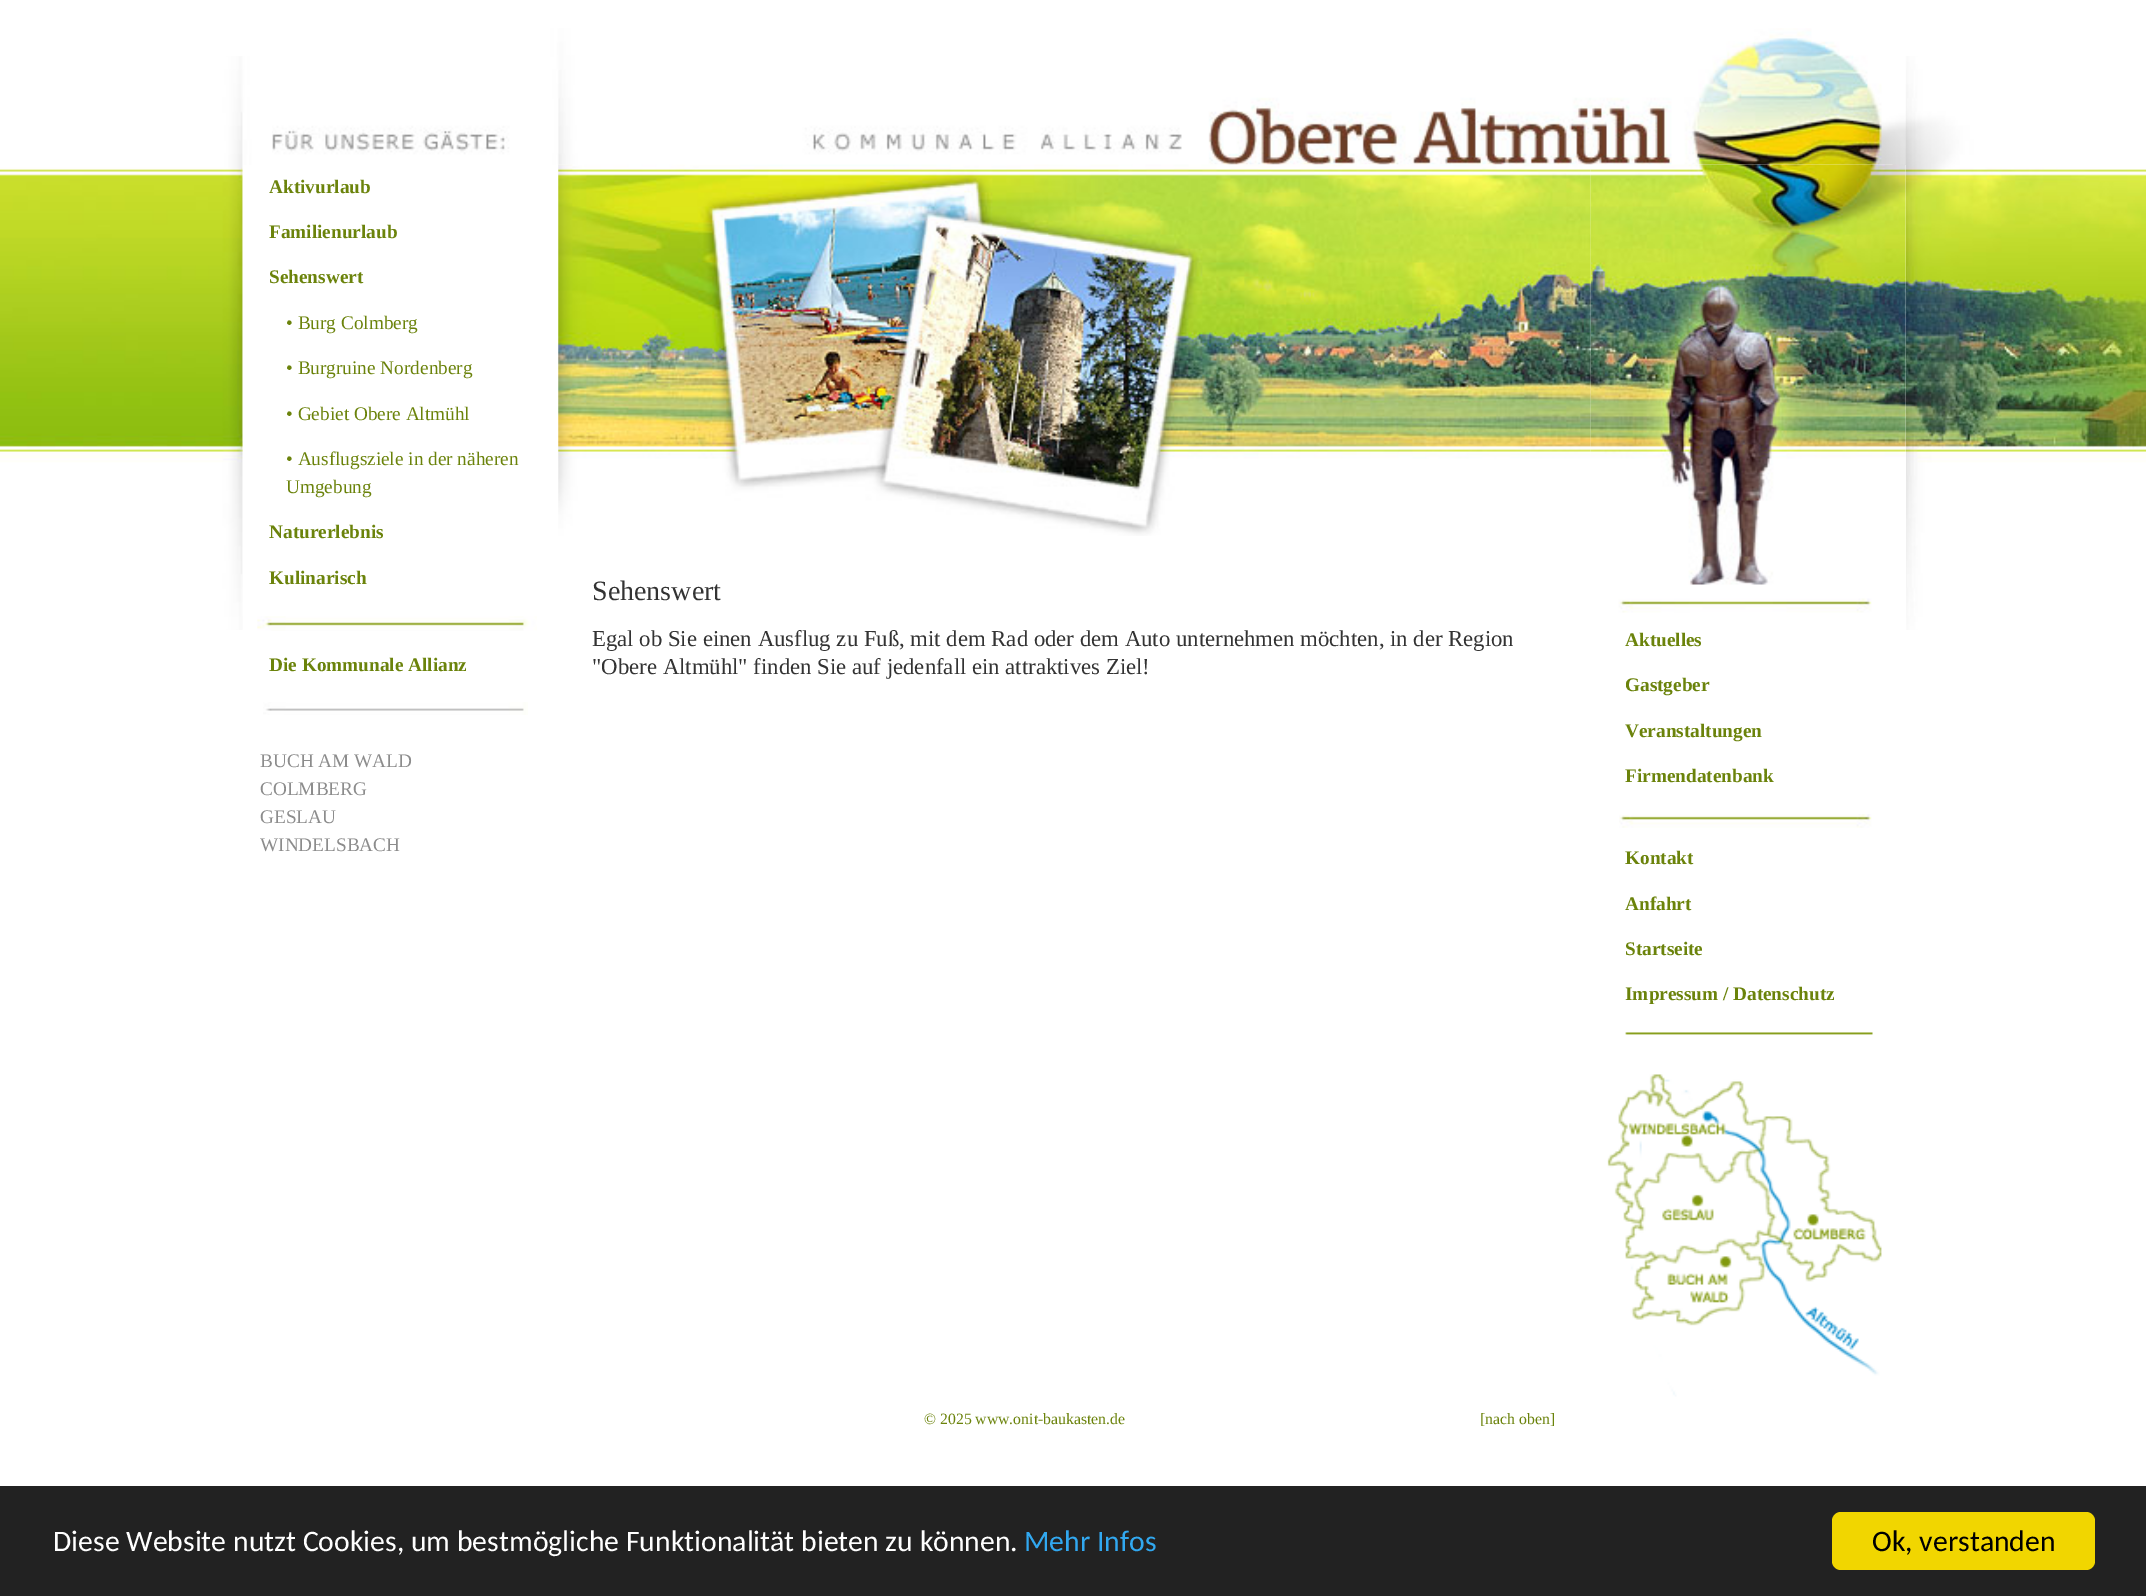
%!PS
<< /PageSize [2146 1596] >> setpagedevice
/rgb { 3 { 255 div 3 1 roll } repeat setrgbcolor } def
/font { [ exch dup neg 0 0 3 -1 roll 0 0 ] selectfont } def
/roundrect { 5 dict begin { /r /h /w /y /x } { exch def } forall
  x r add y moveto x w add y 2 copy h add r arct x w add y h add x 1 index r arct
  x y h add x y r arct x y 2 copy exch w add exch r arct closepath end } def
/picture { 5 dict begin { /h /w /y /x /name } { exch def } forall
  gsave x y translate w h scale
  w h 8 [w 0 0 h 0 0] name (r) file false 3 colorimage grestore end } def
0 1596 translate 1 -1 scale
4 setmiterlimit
255 255 255 rgb
0 0 2146 1596 rectfill
(img/1.rgb) 0 56 2146 574 picture
(img/2.rgb) 272 28 1634 137 picture
243 165 1663 465 rectfill
(img/3.rgb) 257 616 280 15 picture
(img/4.rgb) 263 702 265 13 picture
(img/6.rgb) 1590 164 316 449 picture
(img/5.rgb) 558 164 1033 372 picture
(img/7.rgb) 1619 814 253 14 picture
(img/8.rgb) 1607 1032 275 365 picture
34 34 34 rgb
0 1486 2146 110 rectfill
241 214 0 rgb
1832 1512 263 58 9 roundrect fill
/LiberationSerif-Bold 19.25 font
107 131 11 rgb
[
  [(Aktivurlaub) 269 193]
  [(Familienurlaub) 269 238]
  [(Sehenswert) 269 283]
] { aload pop moveto show } forall
/LiberationSerif-Regular 19.25 font
[
  [(• Burg Colmberg) 286 329]
  [(• Burgruine Nordenberg) 286 374]
  [(• Gebiet Obere Altmühl) 286 420]
  [(• Ausflugsziele in der näheren) 286 465]
  [(Umgebung) 286 493]
] { aload pop moveto show } forall
/LiberationSerif-Bold 19.25 font
[
  [(Naturerlebnis) 269 538]
  [(Kulinarisch) 269 584]
  [(Die Kommunale Allianz) 269 671]
] { aload pop moveto show } forall
/LiberationSerif-Regular 19.25 font
140 140 140 rgb
[
  [(BUCH AM WALD) 260 767]
  [(COLMBERG) 260 795]
  [(GESLAU) 260 823]
  [(WINDELSBACH) 260 851]
] { aload pop moveto show } forall
/LiberationSerif-Regular 28 font
51 51 51 rgb
592 600 moveto (Sehenswert) show
/LiberationSerif-Regular 22.75 font
592 646 moveto (Egal ob Sie einen Ausflug zu Fuß, mit dem Rad oder dem Auto unternehmen möchten, in der Region) show
592 674 moveto ("Obere Altmühl" finden Sie auf jedenfall ein attraktives Ziel!) show
/LiberationSerif-Bold 19.25 font
107 131 11 rgb
[
  [(Aktuelles) 1625 646]
  [(Gastgeber) 1625 691]
  [(Veranstaltungen) 1625 737]
  [(Firmendatenbank) 1625 782]
  [(Kontakt) 1625 864]
  [(Anfahrt) 1625 910]
  [(Startseite) 1625 955]
  [(Impressum / Datenschutz) 1625 1000]
] { aload pop moveto show } forall
/LiberationSerif-Regular 15.75 font
924 1424 moveto (© 2025 www.onit-baukasten.de) show
1480 1424 moveto ([nach oben]) show
/Carlito-Regular 29.75 font
255 255 255 rgb
53 1551 moveto (Diese Website nutzt Cookies, um bestmögliche Funktionalität bieten zu können.) show
49 168 240 rgb
1024 1551 moveto (Mehr Infos) show
0 0 0 rgb
1872 1551 moveto (Ok, verstanden) show
showpage
